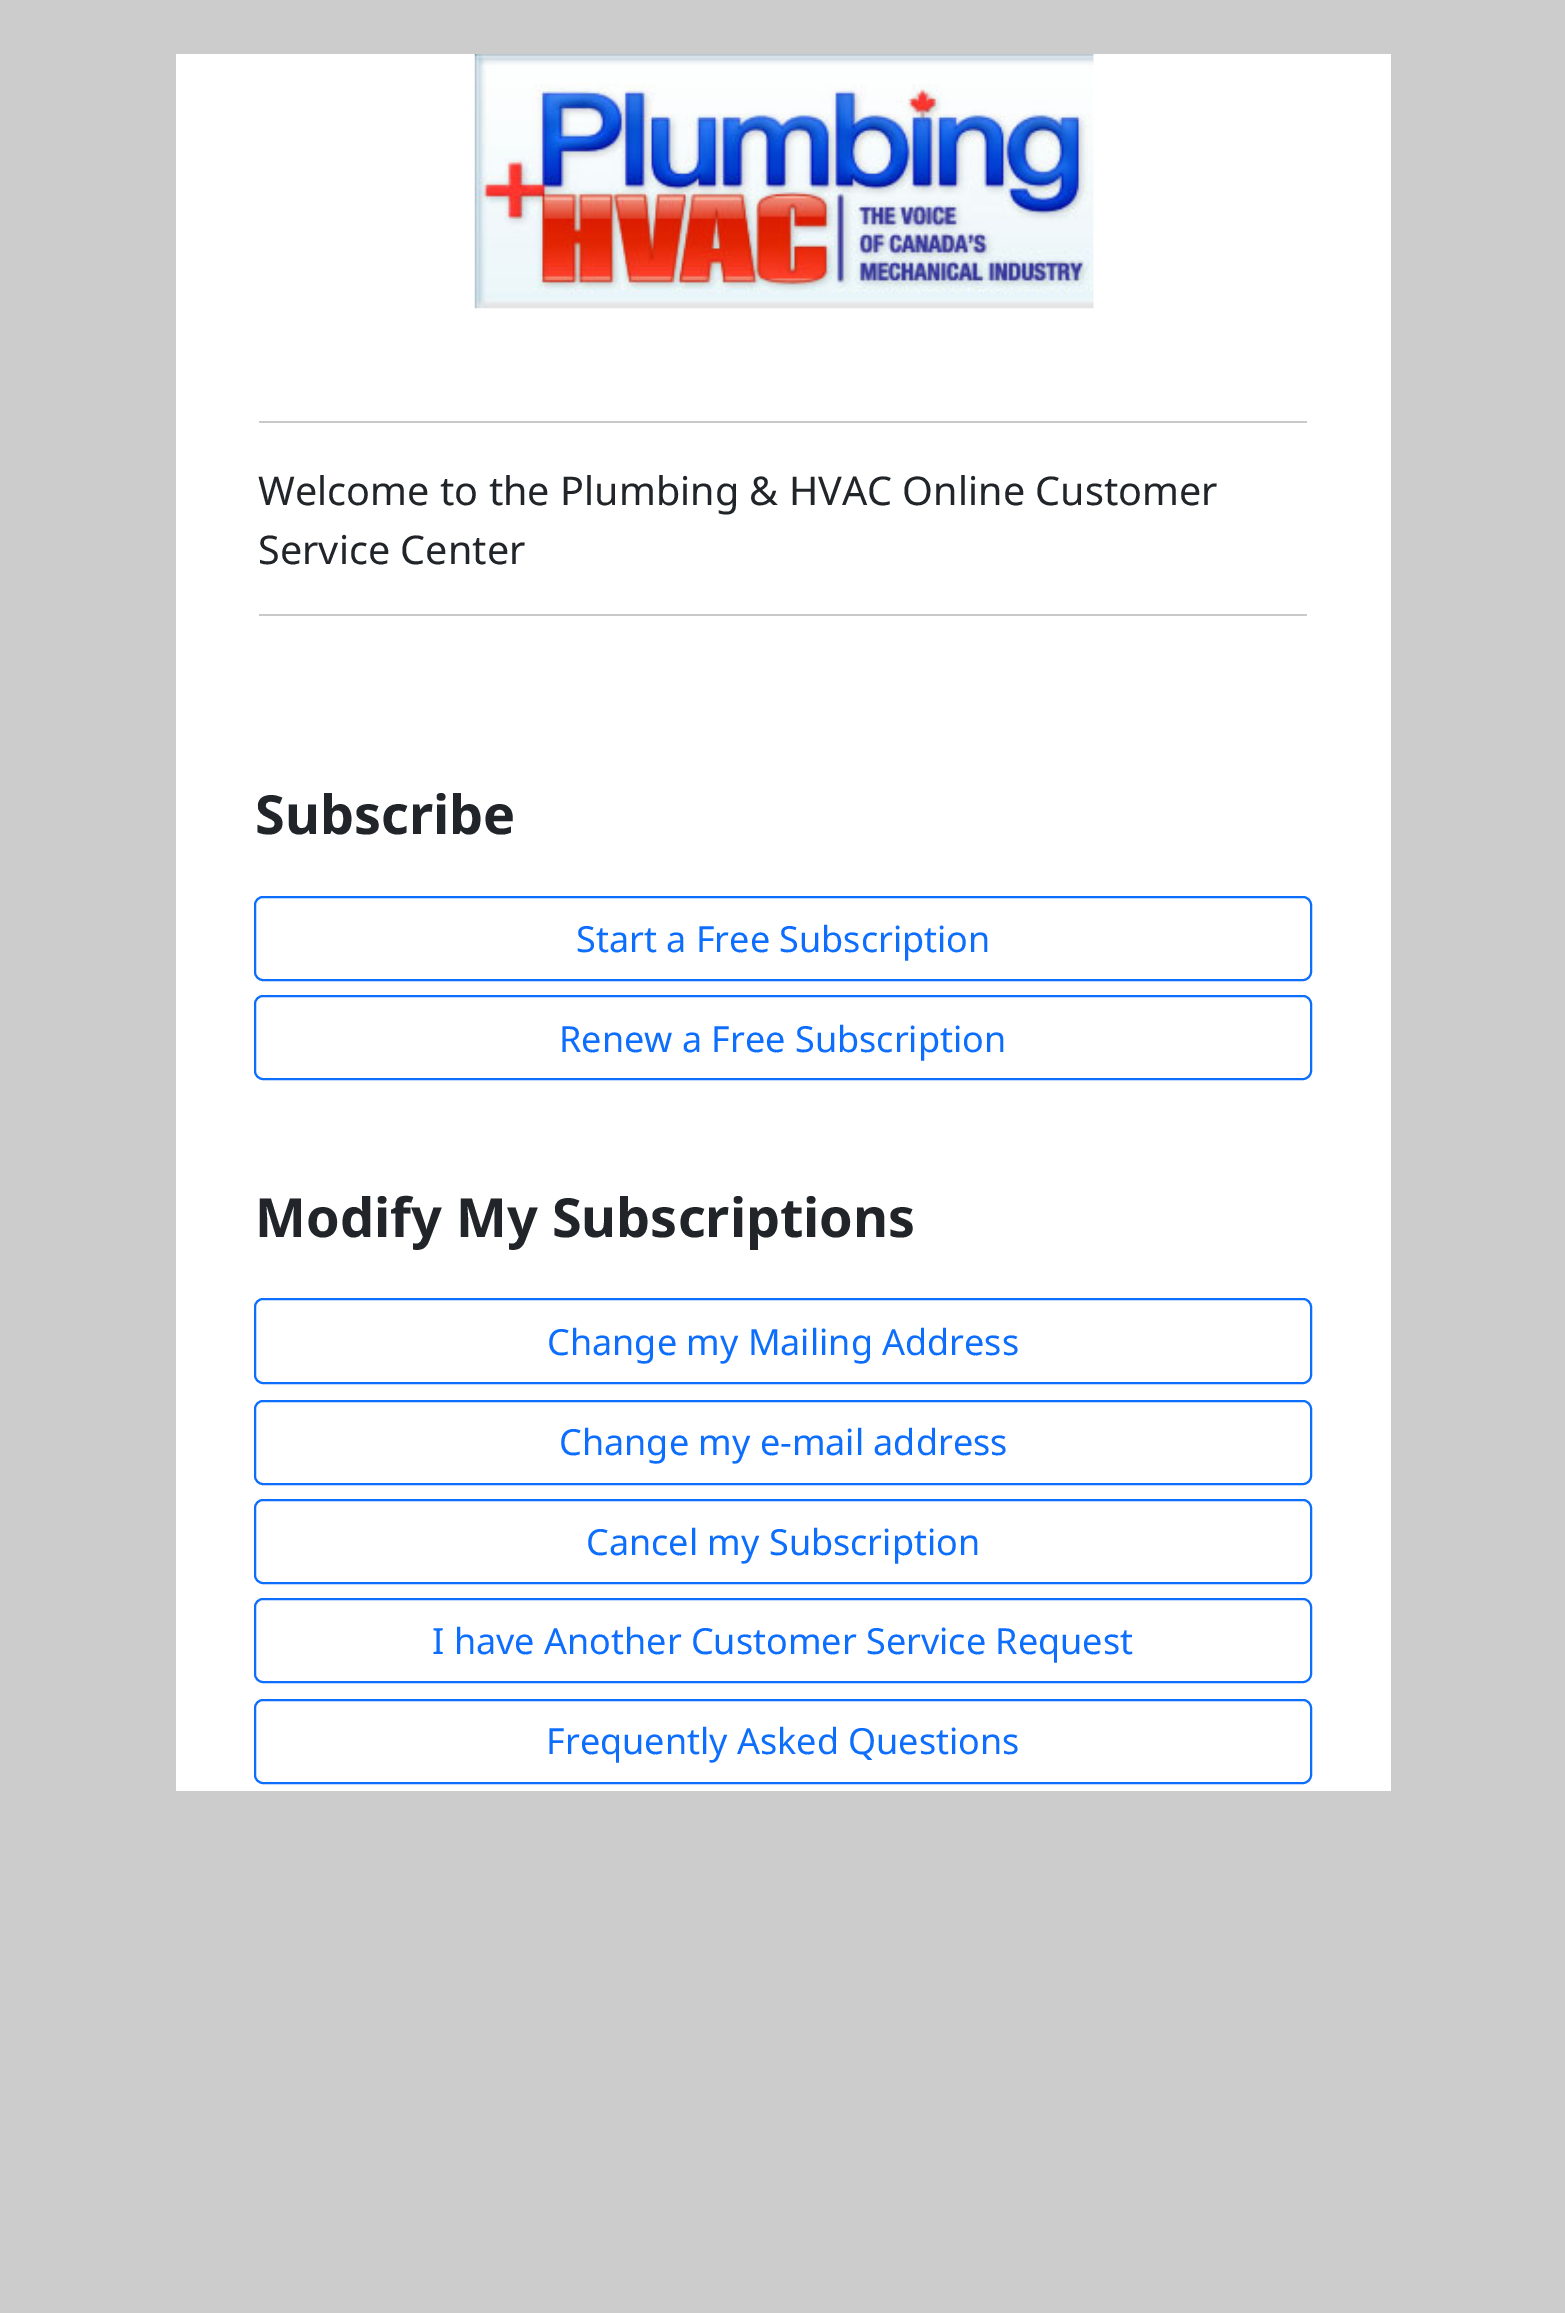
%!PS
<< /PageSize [1565 2313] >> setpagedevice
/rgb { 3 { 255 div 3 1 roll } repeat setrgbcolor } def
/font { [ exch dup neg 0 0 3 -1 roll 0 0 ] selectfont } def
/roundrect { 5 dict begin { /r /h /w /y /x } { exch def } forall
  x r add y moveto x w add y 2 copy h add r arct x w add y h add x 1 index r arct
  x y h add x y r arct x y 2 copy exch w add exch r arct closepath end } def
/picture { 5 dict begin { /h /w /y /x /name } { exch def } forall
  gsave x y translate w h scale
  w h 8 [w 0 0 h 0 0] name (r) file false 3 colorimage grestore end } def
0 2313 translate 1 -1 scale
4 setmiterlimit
204 204 204 rgb
0 0 1565 2313 rectfill
255 255 255 rgb
176 54 1215 1737 rectfill
(img/1.rgb) 474 54 620 255 picture
200 201 202 rgb
259 421 1048 2 rectfill
259 614 1048 2 rectfill
13 110 253 rgb
2 setlinewidth
255 897 1056 83 8 roundrect stroke
255 996 1056 83 8 roundrect stroke
255 1299 1056 84 8 roundrect stroke
255 1401 1056 83 8 roundrect stroke
255 1500 1056 83 8 roundrect stroke
255 1599 1056 83 8 roundrect stroke
255 1700 1056 83 8 roundrect stroke
/NotoSans-Regular 39.6 font
33 37 41 rgb
258 505 moveto (Welcome to the Plumbing & HVAC Online Customer) show
258 564 moveto (Service Center) show
/NotoSans-Bold 54 font
255 834 moveto (Subscribe) show
/NotoSans-Regular 36 font
13 110 253 rgb
576 952 moveto (Start a Free Subscription) show
559 1052 moveto (Renew a Free Subscription) show
/NotoSans-Bold 54 font
33 37 41 rgb
255 1237 moveto (Modify My Subscriptions) show
/NotoSans-Regular 36 font
13 110 253 rgb
[
  [(Change my Mailing Address) 547 1355]
  [(Change my e-mail address) 559 1455]
  [(Cancel my Subscription) 586 1555]
  [(I have Another Customer Service Request) 432 1654]
  [(Frequently Asked Questions) 546 1754]
] { aload pop moveto show } forall
showpage
